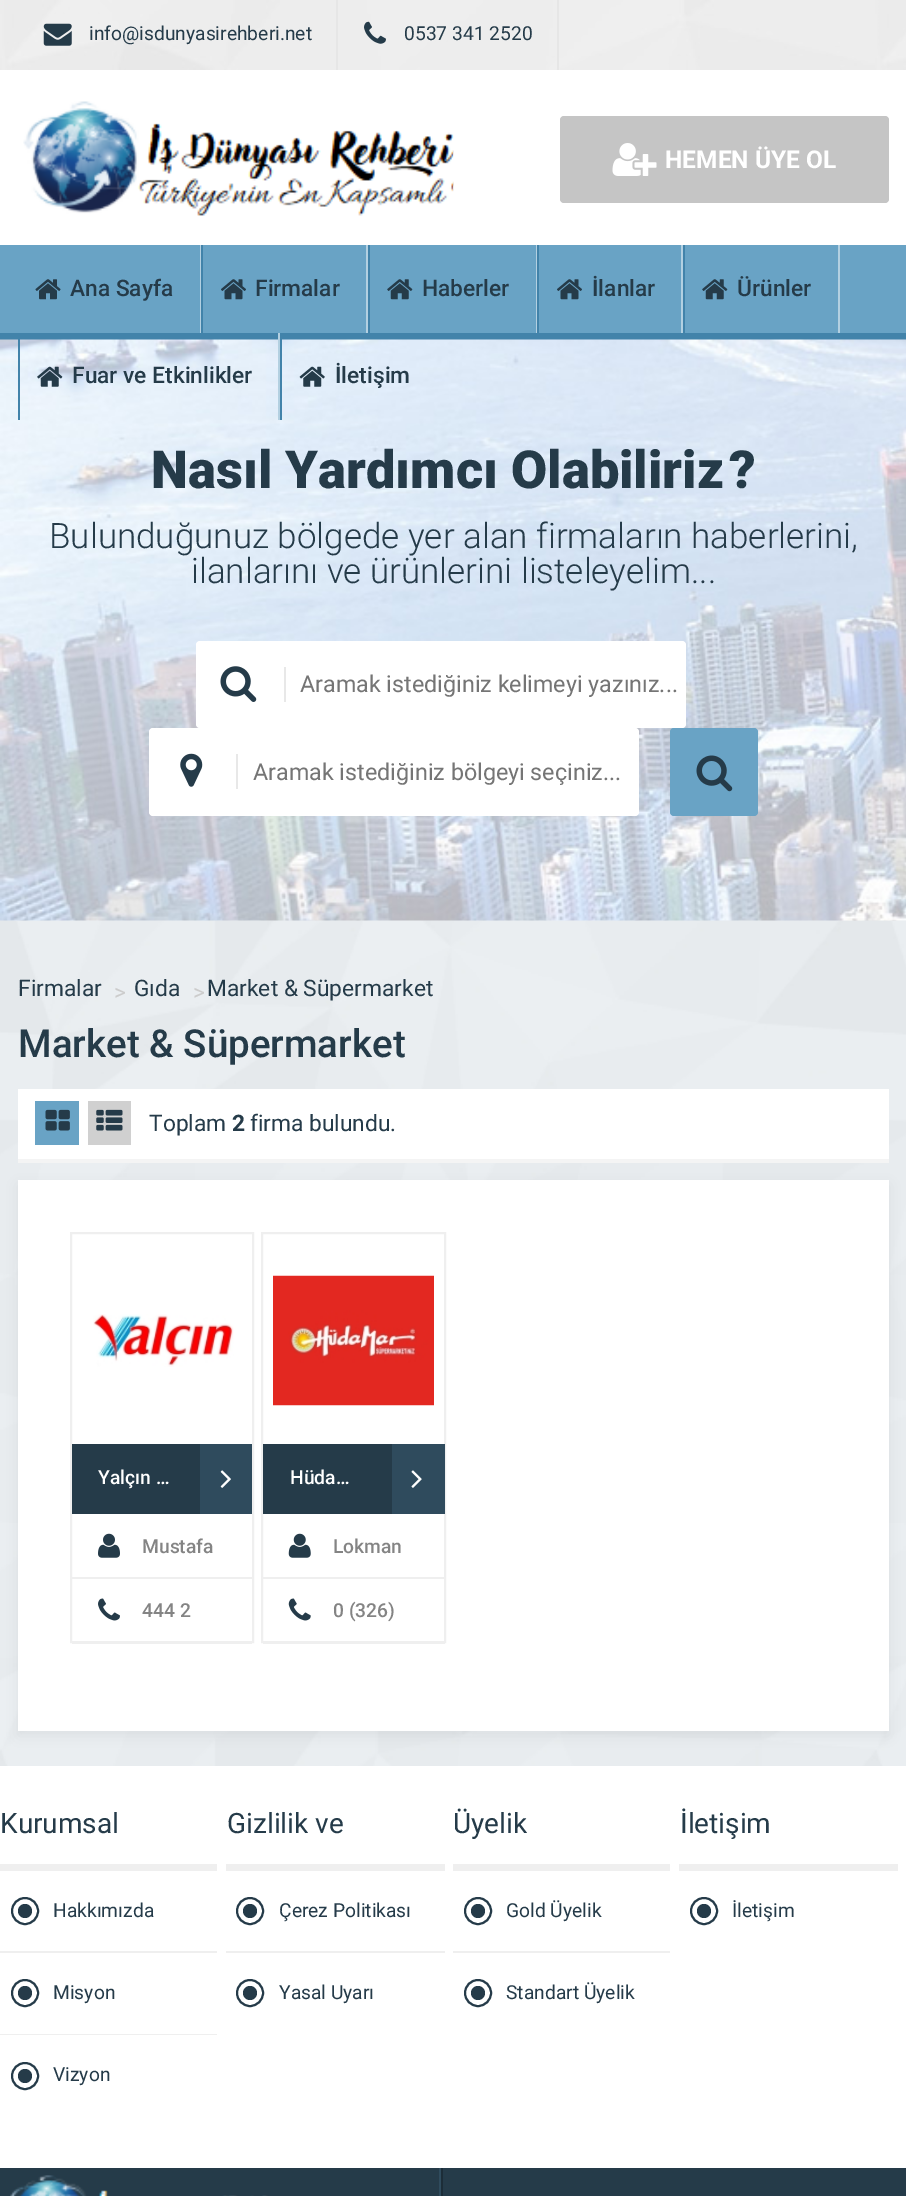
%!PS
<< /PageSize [906 2196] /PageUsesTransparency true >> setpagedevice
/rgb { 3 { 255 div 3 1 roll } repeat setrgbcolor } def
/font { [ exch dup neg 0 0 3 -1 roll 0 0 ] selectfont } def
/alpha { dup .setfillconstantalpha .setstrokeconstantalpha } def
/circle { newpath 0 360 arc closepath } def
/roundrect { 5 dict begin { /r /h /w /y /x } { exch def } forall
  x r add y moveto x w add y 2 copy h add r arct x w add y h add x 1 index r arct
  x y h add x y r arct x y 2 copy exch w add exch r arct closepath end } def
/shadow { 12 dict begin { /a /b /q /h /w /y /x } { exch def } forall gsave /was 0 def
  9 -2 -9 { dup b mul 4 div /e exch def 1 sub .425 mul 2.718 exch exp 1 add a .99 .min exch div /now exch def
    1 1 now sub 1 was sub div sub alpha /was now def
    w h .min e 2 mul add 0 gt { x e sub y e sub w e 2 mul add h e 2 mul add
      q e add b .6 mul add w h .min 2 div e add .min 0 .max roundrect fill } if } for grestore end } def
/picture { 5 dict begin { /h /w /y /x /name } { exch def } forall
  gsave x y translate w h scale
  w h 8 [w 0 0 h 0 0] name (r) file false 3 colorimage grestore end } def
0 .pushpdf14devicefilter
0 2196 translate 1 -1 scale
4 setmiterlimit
255 255 255 rgb
0 0 906 2196 rectfill
(img/1.rgb) 0 920 906 846 picture
(img/2.rgb) 0 0 906 70 picture
230 230 230 rgb
336 0 2 70 rectfill
(img/3.rgb) 43 23 29 23 picture
557 0 2 70 rectfill
(img/4.rgb) 364 21 22 23 picture
(img/5.rgb) 23 101 431 115 picture
197 197 197 rgb
560 116 329 87 4 roundrect fill
(img/6.rgb) 612 143 45 33 picture
[
  [0 245 906 88 105 163 197]
  [0 333 906 7 66 131 170]
  [200 245 1 88 179 208 225]
] { aload pop rgb rectfill } forall
(img/7.rgb) 35 279 26 21 picture
366 245 2 88 rectfill
66 131 170 rgb
201 245 2 88 rectfill
(img/8.rgb) 221 279 25 21 picture
179 208 225 rgb
536 245 1 88 rectfill
66 131 170 rgb
368 245 2 88 rectfill
(img/9.rgb) 387 279 26 21 picture
179 208 225 rgb
681 245 2 88 rectfill
66 131 170 rgb
537 245 2 88 rectfill
(img/8.rgb) 557 279 25 21 picture
179 208 225 rgb
838 245 2 88 rectfill
66 131 170 rgb
683 245 2 88 rectfill
(img/9.rgb) 702 279 26 21 picture
(img/12.rgb) 0 339 906 582 picture
179 208 225 rgb
278 333 2 87 rectfill
66 131 170 rgb
18 333 2 87 rectfill
(img/10.rgb) 37 366 26 21 picture
280 333 2 87 rectfill
(img/11.rgb) 299 366 26 21 picture
255 255 255 rgb
196 641 490 87 4 roundrect fill
232 232 232 rgb
284 667 2 35 rectfill
(img/13.rgb) 220 666 37 36 picture
255 255 255 rgb
149 728 490 88 4 roundrect fill
232 232 232 rgb
236 754 2 35 rectfill
(img/14.rgb) 180 753 23 34 picture
105 163 197 rgb
670 728 88 88 4 roundrect fill
(img/15.rgb) 696 755 37 37 picture
[
  [18 1089 871 70 255 255 255]
  [18 1159 871 4 244 244 244]
  [35 1101 44 44 105 163 197]
] { aload pop rgb rectfill } forall
(img/16.rgb) 45 1109 25 22 picture
208 208 208 rgb
88 1101 43 44 rectfill
(img/17.rgb) 96 1109 27 22 picture
0 0 0 rgb
18 1185 871 551 0 7 0.06 shadow
255 255 255 rgb
18 1180 871 551 rectfill
239 239 239 rgb
2 setlinewidth
71 1233 182 409 rectstroke
(img/18.rgb) 93 1314 141 53 picture
37 59 73 rgb
72 1444 128 70 rectfill
47 75 93 rgb
200 1444 52 70 rectfill
(img/19.rgb) 220 1470 11 18 picture
239 239 239 rgb
72 1577 180 2 rectfill
(img/20.rgb) 98 1533 22 25 picture
72 1643 180 1 rectfill
(img/21.rgb) 98 1598 22 23 picture
262 1233 183 409 rectstroke
(img/22.rgb) 273 1275 161 131 picture
37 59 73 rgb
263 1444 129 70 rectfill
47 75 93 rgb
392 1444 53 70 rectfill
(img/23.rgb) 411 1470 11 18 picture
239 239 239 rgb
263 1577 182 2 rectfill
(img/24.rgb) 288 1533 23 25 picture
263 1643 182 1 rectfill
(img/25.rgb) 288 1598 23 23 picture
0 1864 217 7 rectfill
37 59 73 rgb
25 1911 7 circle fill
25 1911 13 circle stroke
239 239 239 rgb
0 1951 217 2 rectfill
37 59 73 rgb
25 1993 7 circle fill
25 1993 13 circle stroke
239 239 239 rgb
0 2034 217 1 rectfill
37 59 73 rgb
25 2076 7 circle fill
25 2076 13 circle stroke
239 239 239 rgb
226 1864 219 7 rectfill
37 59 73 rgb
250 1911 7 circle fill
250 1911 13 circle stroke
239 239 239 rgb
226 1951 219 2 rectfill
37 59 73 rgb
250 1993 7 circle fill
250 1993 13 circle stroke
239 239 239 rgb
453 1864 217 7 rectfill
37 59 73 rgb
478 1911 7 circle fill
478 1911 13 circle stroke
239 239 239 rgb
453 1951 217 2 rectfill
37 59 73 rgb
478 1993 7 circle fill
478 1993 13 circle stroke
239 239 239 rgb
679 1864 219 7 rectfill
37 59 73 rgb
704 1911 7 circle fill
704 1911 13 circle stroke
0 2168 906 28 rectfill
47 75 93 rgb
439 2168 2 28 rectfill
(img/26.rgb) 10 2175 258 21 picture
28 45 56 rgb
441 2168 2 28 rectfill
/Roboto-Regular 19.25 font
37 59 73 rgb
89 40 moveto (info@isdunyasirehberi.net) show
404 40 moveto (0537 341 2520) show
/Roboto-Bold 24.5 font
255 255 255 rgb
665 168 moveto (HEMEN ÜYE OL) show
/Roboto-Medium 22.75 font
37 59 73 rgb
[
  [(Ana Sayfa) 70 296]
  [(Firmalar) 255 296]
  [(Haberler) 422 296]
  [(İlanlar) 592 296]
  [(Ürünler) 737 296]
  [(Fuar ve Etkinlikler) 72 383]
  [(İletişim) 335 383]
] { aload pop moveto show } forall
/Roboto-Black 52.5 font
151 488 moveto (Nasıl Yardımcı Olabiliriz) show
729 488 moveto (?) show
/Roboto-Light 35 font
49 548 moveto (Bulunduğunuz bölgede yer alan firmaların haberlerini,) show
191 583 moveto (ilanlarını ve ürünlerini listeleyelim...) show
/Roboto-Regular 23.3 font
117 117 117 rgb
300 692 moveto (Aramak istediğiniz kelimeyi yazınız...) show
253 780 moveto (Aramak istediğiniz bölgeyi seçiniz...) show
/Roboto-Regular 22.75 font
37 59 73 rgb
18 996 moveto (Firmalar) show
204 204 204 rgb
114 1000 moveto (>) show
37 59 73 rgb
134 996 moveto (Gıda) show
204 204 204 rgb
193 1000 moveto (>) show
37 59 73 rgb
207 996 moveto (Market & Süpermarket) show
/Roboto-Medium 38.5 font
18 1057 moveto (Market & Süpermarket) show
/Roboto-Regular 22.75 font
149 1131 moveto (Toplam) show
/Roboto-Bold 22.75 font
232 1131 moveto (2) show
/Roboto-Regular 22.75 font
250 1131 moveto (firma bulundu.) show
/Roboto-Medium 19.25 font
255 255 255 rgb
98 1484 moveto (Yalçın …) show
132 132 132 rgb
142 1553 moveto (Mustafa) show
142 1617 moveto (444 2) show
255 255 255 rgb
290 1484 moveto (Hüda…) show
132 132 132 rgb
333 1553 moveto (Lokman) show
333 1617 moveto (0 \(326\)) show
/Roboto-Regular 28 font
37 59 73 rgb
0 1833 moveto (Kurumsal) show
/Roboto-Regular 19.25 font
[
  [(Hakkımızda) 53 1917]
  [(Misyon) 53 1999]
  [(Vizyon) 53 2081]
] { aload pop moveto show } forall
/Roboto-Regular 28 font
227 1833 moveto (Gizlilik ve) show
/Roboto-Regular 19.25 font
279 1917 moveto (Çerez Politikası) show
279 1999 moveto (Yasal Uyarı) show
/Roboto-Regular 28 font
453 1833 moveto (Üyelik) show
/Roboto-Regular 19.25 font
506 1917 moveto (Gold Üyelik) show
506 1999 moveto (Standart Üyelik) show
/Roboto-Regular 28 font
680 1833 moveto (İletişim) show
/Roboto-Regular 19.25 font
732 1917 moveto (İletişim) show
.poppdf14devicefilter showpage
